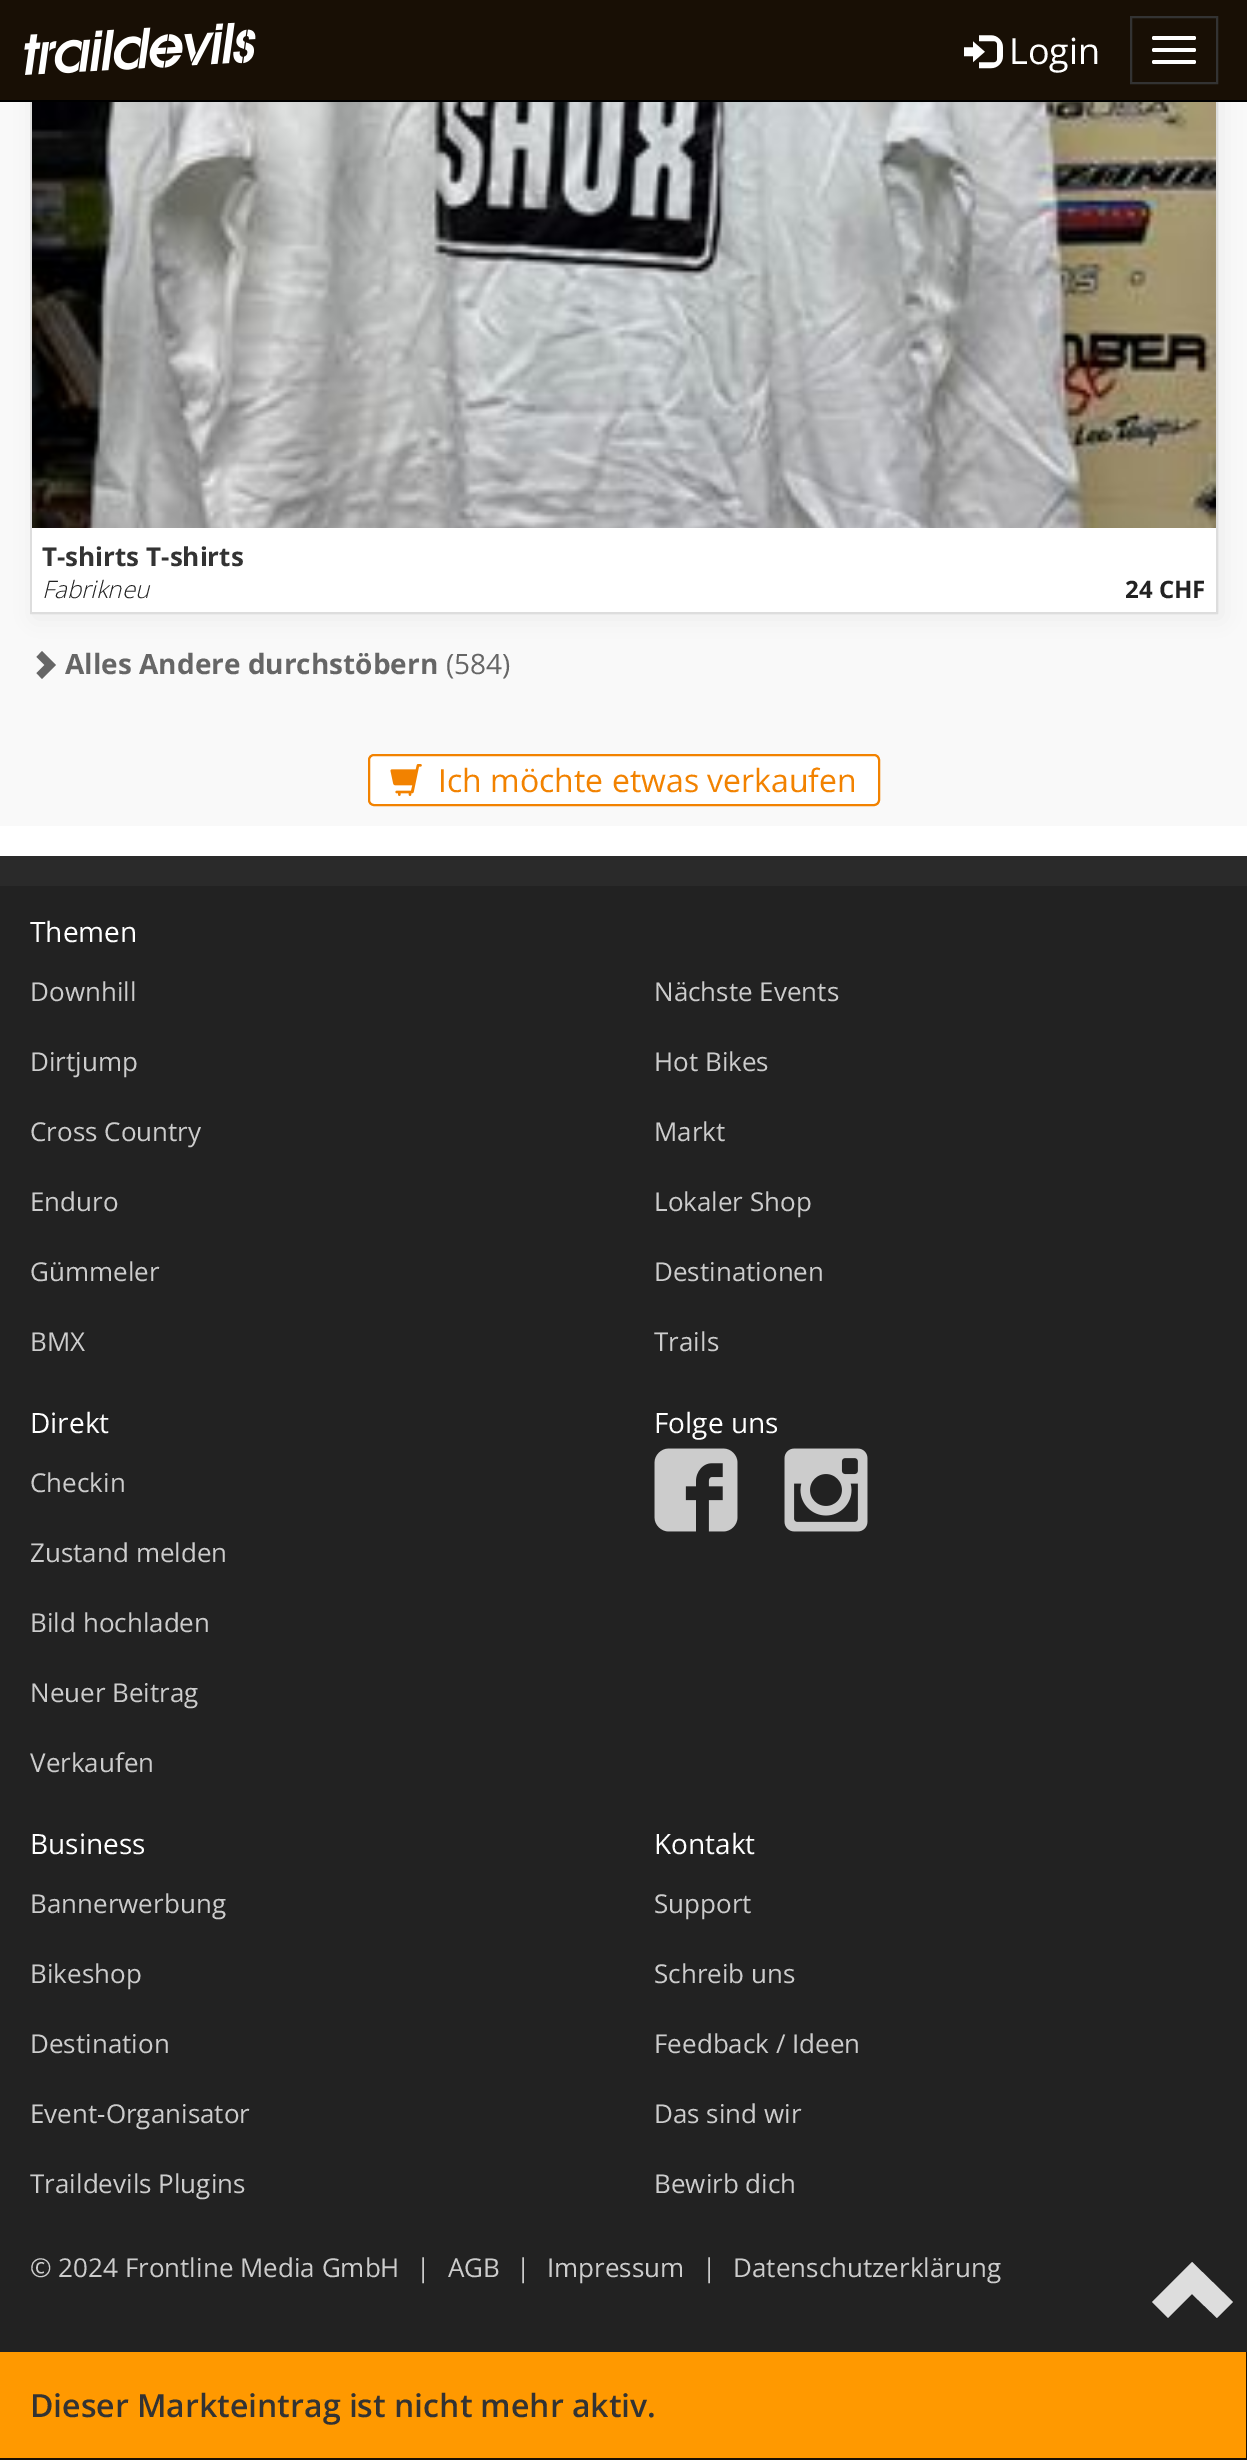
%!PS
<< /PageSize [1247 2460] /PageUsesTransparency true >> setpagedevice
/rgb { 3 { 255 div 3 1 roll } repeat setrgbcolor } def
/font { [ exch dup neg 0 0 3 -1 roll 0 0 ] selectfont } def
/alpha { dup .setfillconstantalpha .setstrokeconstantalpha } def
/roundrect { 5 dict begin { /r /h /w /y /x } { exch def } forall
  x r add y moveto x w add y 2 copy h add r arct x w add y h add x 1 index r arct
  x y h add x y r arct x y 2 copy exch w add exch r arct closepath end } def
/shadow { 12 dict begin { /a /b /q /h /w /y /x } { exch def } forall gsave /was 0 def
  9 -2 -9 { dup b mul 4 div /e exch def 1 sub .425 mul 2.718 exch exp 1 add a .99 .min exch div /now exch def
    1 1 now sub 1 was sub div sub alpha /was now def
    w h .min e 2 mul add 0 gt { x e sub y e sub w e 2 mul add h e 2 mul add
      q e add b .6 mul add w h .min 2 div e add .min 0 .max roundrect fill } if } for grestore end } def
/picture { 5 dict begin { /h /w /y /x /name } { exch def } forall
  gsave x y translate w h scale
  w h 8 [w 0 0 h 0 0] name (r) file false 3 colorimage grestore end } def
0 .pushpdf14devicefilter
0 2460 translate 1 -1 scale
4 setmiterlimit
42 42 42 rgb
0 0 1247 2460 rectfill
249 249 249 rgb
0 102 1247 724 rectfill
235 235 235 rgb
34 -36 1188 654 0 12 1 shadow
221 221 221 rgb
2 setlinewidth
31 -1 1186 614 rectstroke
24 15 5 rgb
0 0 1247 100 rectfill
0 0 0 rgb
0 100 1247 2 rectfill
(img/1.rgb) 24 22 232 53 picture
(img/2.rgb) 964 35 39 34 picture
51 51 51 rgb
1131 17 86 66 rectstroke
255 255 255 rgb
1152 36 44 4 2 roundrect fill
1152 48 44 4 2 roundrect fill
1152 60 44 4 2 roundrect fill
(img/3.rgb) 32 102 1184 426 picture
32 528 1184 84 rectfill
102 102 102 rgb
42 679 moveto 36.5 673 lineto 44.5 665 lineto 36.5 657 lineto 42 651 lineto 56 665 lineto closepath fill
255 255 255 rgb
369 755 510 50 5 roundrect gsave fill grestore
242 130 0 rgb
stroke
(img/4.rgb) 390 764 32 32 picture
255 255 255 rgb
0 826 1247 30 rectfill
34 34 34 rgb
0 886 1247 1466 rectfill
(img/5.rgb) 654 1448 84 84 picture
(img/6.rgb) 784 1448 84 84 picture
221 221 221 rgb
1217 2318 moveto 1233 2302 lineto 1192 2262 lineto 1152 2302 lineto 1168 2318 lineto 1192 2294 lineto closepath fill
[
  [1246 2352 1 108 24 15 5]
  [0 2458 1247 2 24 15 5]
  [0 2352 1246 106 255 153 0]
] { aload pop rgb rectfill } forall
/OpenSans-Regular 36 font
255 255 255 rgb
1009 64 moveto (Login) show
/OpenSans-Bold 26 font
51 51 51 rgb
42 566 moveto (T-shirts T-shirts) show
/OpenSans-LightItalic 24 font
34 34 34 rgb
42 598 moveto (Fabrikneu) show
/OpenSans-Bold 24 font
1125 598 moveto (24 CHF) show
/OpenSans-Bold 28 font
102 102 102 rgb
65 674 moveto (Alles Andere durchstöbern) show
/OpenSans-Regular 28 font
446 674 moveto (\(584\)) show
/OpenSans-Regular 32 font
242 130 0 rgb
438 792 moveto (Ich möchte etwas verkaufen) show
/OpenSans-Regular 28 font
255 255 255 rgb
30 942 moveto (Themen) show
/OpenSans-Regular 26 font
204 204 204 rgb
[
  [(Downhill) 30 1001]
  [(Dirtjump) 30 1071]
  [(Cross Country) 30 1141]
  [(Enduro) 30 1211]
  [(Gümmeler) 30 1281]
  [(BMX) 30 1351]
  [(Nächste Events) 654 1001]
  [(Hot Bikes) 654 1071]
  [(Markt) 654 1141]
  [(Lokaler Shop) 654 1211]
  [(Destinationen) 654 1281]
  [(Trails) 654 1351]
] { aload pop moveto show } forall
/OpenSans-Regular 28 font
255 255 255 rgb
30 1433 moveto (Direkt) show
/OpenSans-Regular 26 font
204 204 204 rgb
[
  [(Checkin) 30 1492]
  [(Zustand melden) 30 1562]
  [(Bild hochladen) 30 1632]
  [(Neuer Beitrag) 30 1702]
  [(Verkaufen) 30 1772]
] { aload pop moveto show } forall
/OpenSans-Regular 28 font
255 255 255 rgb
654 1433 moveto (Folge uns) show
30 1854 moveto (Business) show
/OpenSans-Regular 26 font
204 204 204 rgb
[
  [(Bannerwerbung) 30 1913]
  [(Bikeshop) 30 1983]
  [(Destination) 30 2053]
  [(Event-Organisator) 30 2123]
  [(Traildevils Plugins) 30 2193]
] { aload pop moveto show } forall
/OpenSans-Regular 28 font
255 255 255 rgb
654 1854 moveto (Kontakt) show
/OpenSans-Regular 26 font
204 204 204 rgb
[
  [(Support) 654 1913]
  [(Schreib uns) 654 1983]
  [(Feedback / Ideen) 654 2053]
  [(Das sind wir) 654 2123]
  [(Bewirb dich) 654 2193]
  [(© 2024 Frontline Media GmbH) 30 2277]
  [(|) 416 2277]
  [(AGB) 448 2277]
  [(|) 516 2277]
  [(Impressum) 547 2277]
  [(|) 702 2277]
  [(Datenschutzerklärung) 733 2277]
] { aload pop moveto show } forall
/OpenSans-SemiBold 32 font
51 51 51 rgb
30 2417 moveto (Dieser Markteintrag ist nicht mehr aktiv.) show
.poppdf14devicefilter showpage
